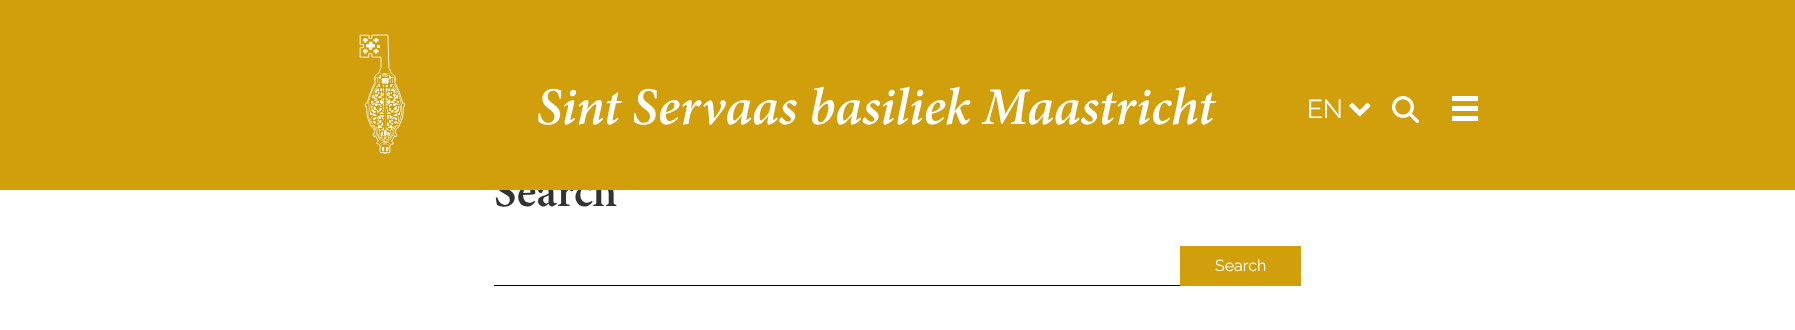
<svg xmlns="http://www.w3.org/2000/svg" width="1795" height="330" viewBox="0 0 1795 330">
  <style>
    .t1 { font: 600 45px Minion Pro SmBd; fill: #333; }
    .t2 { font: 100 26px Raleway; fill: #fff; }
    .t3 { font: 100 16px Raleway; fill: #fff; }
  </style>
  <rect width="100%" height="100%" fill="#fff"/>
  <text x="494" y="206" class="t1">Search</text>
  <rect x="0" y="0" width="1795" height="190" fill="#d09f0b"/>
  <image x="359" y="34" width="47" height="120" href="images/1.png"/>
  <image x="538" y="86" width="679" height="39" href="images/2.png"/>
  <text x="1307" y="118" class="t2">EN</text>
  <image x="1349" y="102" width="22" height="15" href="images/3.png"/>
  <image x="1392" y="96" width="27" height="27" href="images/4.png"/>
  <rect x="1452" y="96" width="26" height="5" fill="#fff"/>
  <rect x="1452" y="106" width="26" height="5" fill="#fff"/>
  <rect x="1452" y="116" width="26" height="5" fill="#fff"/>
  <rect x="1180" y="246" width="121" height="40" fill="#d09f0b"/>
  <text x="1215" y="271" class="t3">Search</text>
  <rect x="494" y="285" width="686" height="1" fill="#000"/>
</svg>
